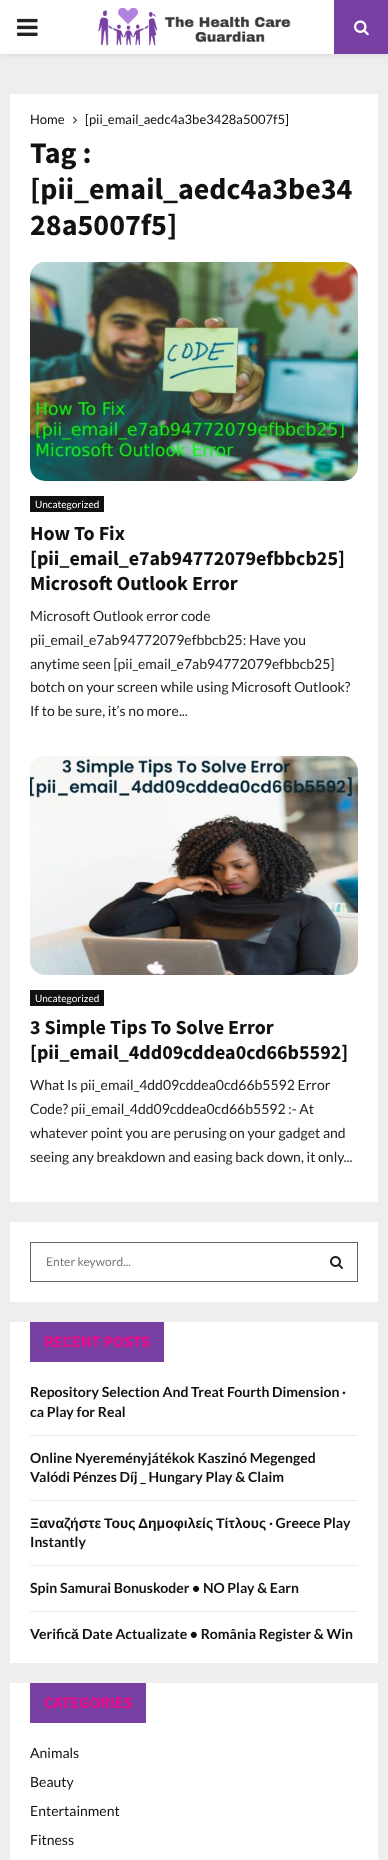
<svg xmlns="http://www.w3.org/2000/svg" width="388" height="1860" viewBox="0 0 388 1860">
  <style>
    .t1 { font: 13px Lato; fill: #111; }
    .t2 { font: bold 30px Source Sans Pro; fill: #111; }
    .t3 { font: 10px Lato; fill: #fff; }
    .t4 { font: bold 20px Source Sans Pro; fill: #111; }
    .t5 { font: 14px Lato; fill: #222; }
    .t6 { font: 12px Lato; fill: #757575; }
    .t7 { font: bold 16px Source Sans Pro; fill: #ed0b87; }
    .t8 { font: bold 14px Lato; fill: #111; }
    .t9 { font: bold 14px Liberation Sans; fill: #111; }
    .t10 { font: 14px Lato; fill: #111; }
  </style>
  <rect width="100%" height="100%" fill="#eee"/>
  <rect x="0" y="1" width="388" height="54" fill="#bebebe75" filter="blur(2.5px)"/>
  <rect x="0" y="0" width="334" height="54" fill="#fff"/>
  <image x="17" y="18" width="21" height="18" href="images/1.png"/>
  <image x="98" y="7" width="193" height="39" href="images/2.png"/>
  <rect x="334" y="0" width="54" height="54" fill="#7840a3"/>
  <image x="354" y="20" width="15" height="16" href="images/3.png"/>
  <rect x="10" y="94" width="368" height="1108" fill="#fff"/>
  <text x="30" y="124" class="t1">Home</text>
  <image x="73" y="116" width="4" height="8" href="images/4.png"/>
  <text x="85" y="124" class="t1">[pii_email_aedc4a3be3428a5007f5]</text>
  <text x="30" y="163" class="t2">Tag :</text>
  <text x="30" y="199" class="t2">[pii_email_aedc4a3be34</text>
  <text x="30" y="235" class="t2">28a5007f5]</text>
  <rect x="30" y="262" width="328" height="219" rx="15" fill="#f5f5f5"/>
  <image x="30" y="262" width="328" height="219" href="images/5.png"/>
  <rect x="30" y="496" width="74" height="16" fill="#111"/>
  <text x="35" y="508" class="t3">Uncategorized</text>
  <text x="30" y="540" class="t4">How To Fix</text>
  <text x="30" y="565" class="t4">[pii_email_e7ab94772079efbbcb25]</text>
  <text x="30" y="590" class="t4">Microsoft Outlook Error</text>
  <text x="30" y="621" class="t5">Microsoft Outlook error code</text>
  <text x="30" y="645" class="t5">pii_email_e7ab94772079efbbcb25: Have you</text>
  <text x="30" y="669" class="t5">anytime seen [pii_email_e7ab94772079efbbcb25]</text>
  <text x="30" y="692" class="t5">botch on your screen while using Microsoft Outlook?</text>
  <text x="30" y="716" class="t5">If to be sure, it’s no more...</text>
  <rect x="30" y="756" width="328" height="219" rx="15" fill="#f5f5f5"/>
  <image x="30" y="756" width="328" height="219" href="images/6.png"/>
  <rect x="30" y="990" width="74" height="16" fill="#111"/>
  <text x="35" y="1002" class="t3">Uncategorized</text>
  <text x="30" y="1034" class="t4">3 Simple Tips To Solve Error</text>
  <text x="30" y="1059" class="t4">[pii_email_4dd09cddea0cd66b5592]</text>
  <text x="30" y="1090" class="t5">What Is pii_email_4dd09cddea0cd66b5592 Error</text>
  <text x="30" y="1114" class="t5">Code? pii_email_4dd09cddea0cd66b5592 :- At</text>
  <text x="30" y="1138" class="t5">whatever point you are perusing on your gadget and</text>
  <text x="30" y="1162" class="t5">seeing any breakdown and easing back down, it only...</text>
  <rect x="10" y="1222" width="368" height="80" fill="#fff"/>
  <rect x="30.5" y="1242.5" width="327" height="39" fill="none" stroke="#666"/>
  <text x="46" y="1266" class="t6">Enter keyword...</text>
  <image x="330" y="1256" width="13" height="13" href="images/7.png"/>
  <rect x="10" y="1322" width="368" height="341" fill="#fff"/>
  <rect x="30" y="1322" width="134" height="40" fill="#7840a3"/>
  <text x="44" y="1347" class="t7">RECENT POSTS</text>
  <rect x="30" y="1435" width="328" height="1" fill="#ececec"/>
  <text x="30" y="1397" class="t8">Repository Selection And Treat Fourth Dimension ·</text>
  <text x="30" y="1417" class="t8">ca Play for Real</text>
  <rect x="30" y="1500" width="328" height="1" fill="#ececec"/>
  <text x="30" y="1463" class="t8">Online Nyereményjátékok Kaszinó Megenged</text>
  <text x="30" y="1482" class="t8">Valódi Pénzes Díj _ Hungary Play &amp; Claim</text>
  <rect x="30" y="1565" width="328" height="1" fill="#ececec"/>
  <text x="30" y="1528" class="t9">Ξαναζήστε</text>
  <text x="104" y="1528" class="t9">Τους</text>
  <text x="138" y="1528" class="t9">Δημοφιλείς</text>
  <text x="216" y="1528" class="t9">Τίτλους</text>
  <text x="269" y="1528" class="t8">· Greece Play</text>
  <text x="30" y="1547" class="t8">Instantly</text>
  <rect x="30" y="1611" width="328" height="1" fill="#ececec"/>
  <text x="30" y="1593" class="t8">Spin Samurai Bonuskoder • NO Play &amp; Earn</text>
  <text x="30" y="1639" class="t8">Verific</text>
  <text x="71" y="1639" class="t9">ă</text>
  <text x="82" y="1639" class="t8">Date Actualizate • România Register &amp; Win</text>
  <rect x="10" y="1683" width="368" height="177" fill="#fff"/>
  <rect x="30" y="1683" width="116" height="40" fill="#7840a3"/>
  <text x="44" y="1708" class="t7">CATEGORIES</text>
  <text x="30" y="1758" class="t10">Animals</text>
  <text x="30" y="1787" class="t10">Beauty</text>
  <text x="30" y="1816" class="t10">Entertainment</text>
  <text x="30" y="1845" class="t10">Fitness</text>
</svg>
